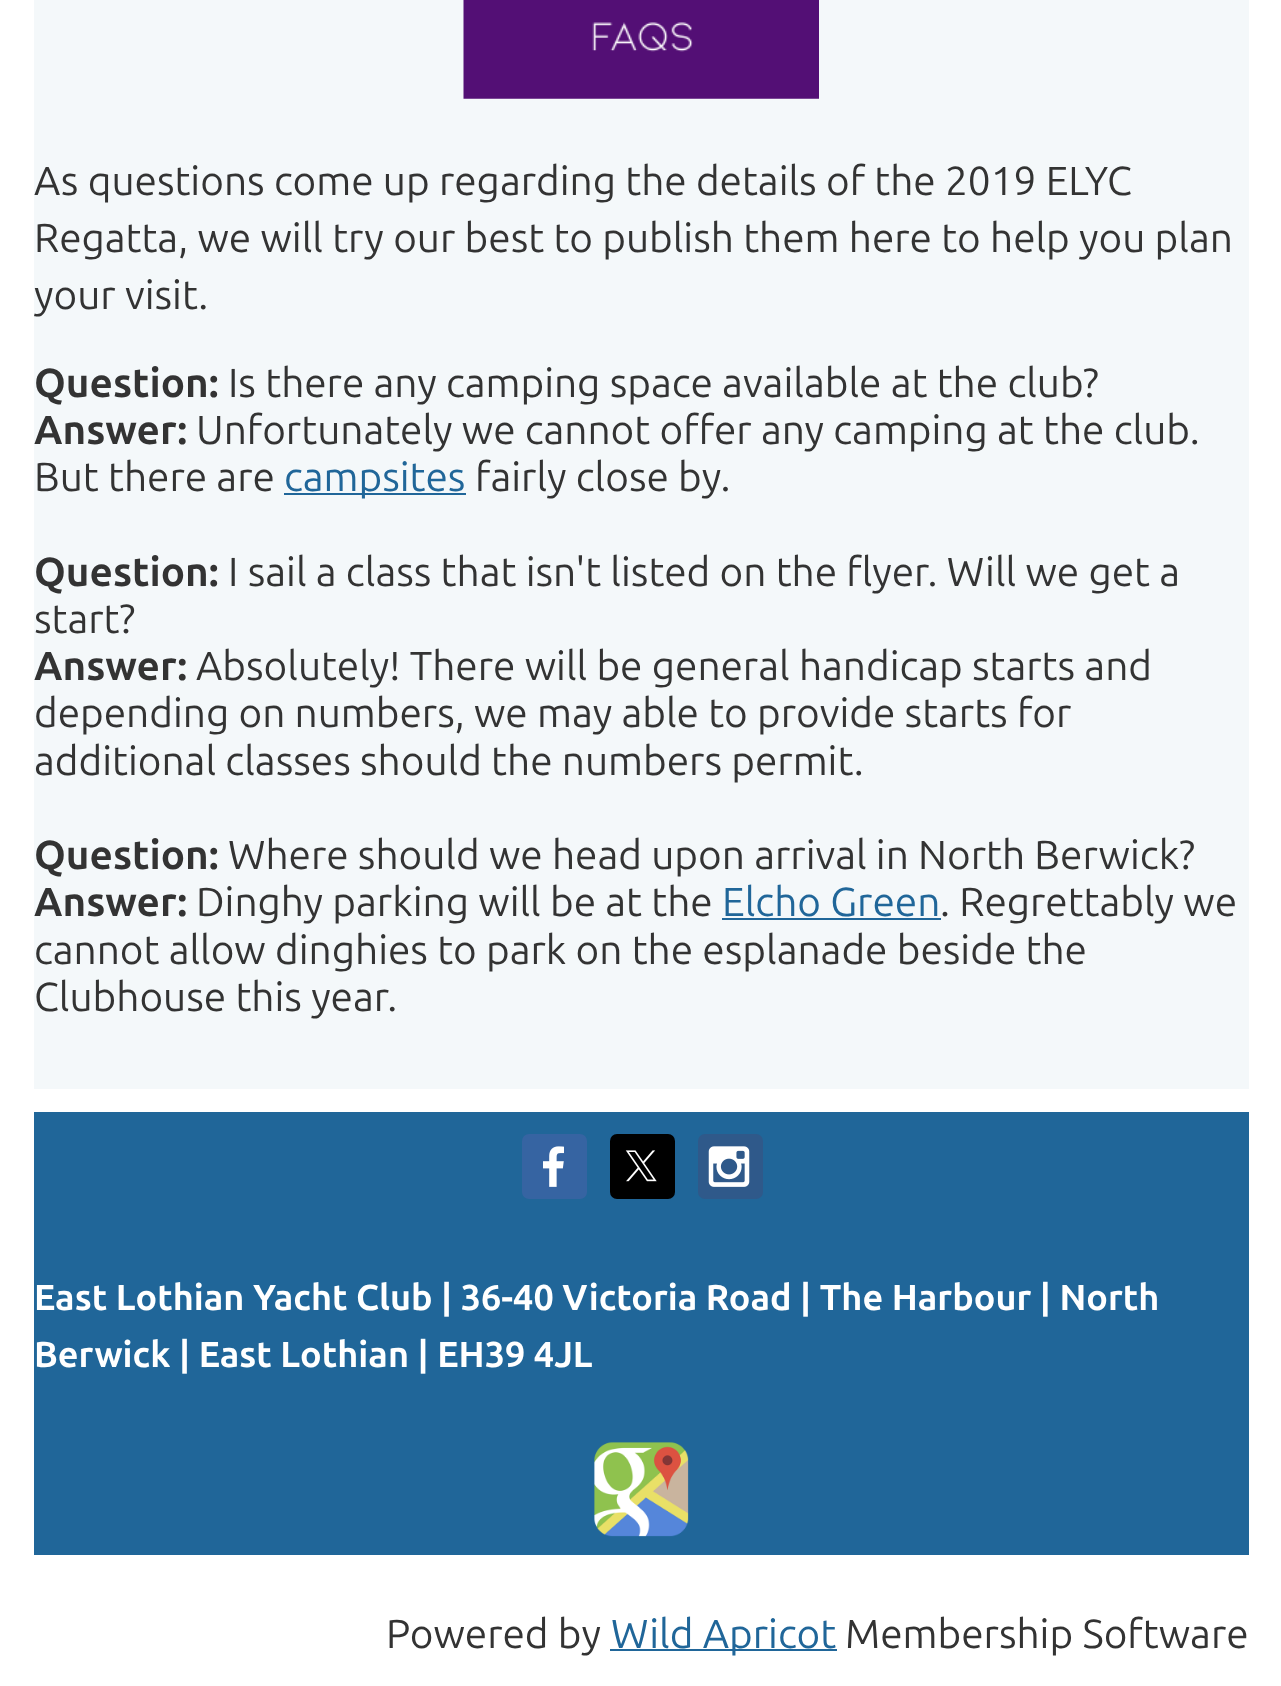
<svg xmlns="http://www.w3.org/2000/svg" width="1281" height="1686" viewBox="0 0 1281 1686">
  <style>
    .t1 { font: 40.5px Ubuntu; fill: #333; }
    .t2 { font: bold 40.5px Ubuntu; fill: #333; }
    .t3 { font: 40.5px Ubuntu; fill: #206699; }
    .t4 { font: bold 36px Ubuntu; fill: #fff; }
  </style>
  <rect width="100%" height="100%" fill="#fff"/>
  <rect x="34" y="0" width="1215" height="1089" fill="#f4f8fa"/>
  <image x="463" y="0" width="356" height="99" href="images/1.png"/>
  <text x="34" y="195" class="t1">As questions come up regarding the details of the 2019 ELYC</text>
  <text x="34" y="252" class="t1">Regatta, we will try our best to publish them here to help you plan</text>
  <text x="34" y="309" class="t1">your visit.</text>
  <text x="34" y="397" class="t2">Question:</text>
  <text x="228" y="397" class="t1">Is there any camping space available at the club?</text>
  <text x="34" y="444" class="t2">Answer:</text>
  <text x="196" y="444" class="t1">Unfortunately we cannot offer any camping at the club.</text>
  <text x="34" y="491" class="t1">But there are</text>
  <rect x="284" y="493" width="182" height="2" fill="#206699"/>
  <text x="284" y="491" class="t3">campsites</text>
  <text x="475" y="491" class="t1">fairly close by.</text>
  <text x="34" y="586" class="t2">Question:</text>
  <text x="228" y="586" class="t1">I sail a class that isn't listed on the flyer. Will we get a</text>
  <text x="34" y="633" class="t1">start?</text>
  <text x="34" y="680" class="t2">Answer:</text>
  <text x="196" y="680" class="t1">Absolutely! There will be general handicap starts and</text>
  <text x="34" y="727" class="t1">depending on numbers, we may able to provide starts for</text>
  <text x="34" y="775" class="t1">additional classes should the numbers permit.</text>
  <text x="34" y="869" class="t2">Question:</text>
  <text x="228" y="869" class="t1">Where should we head upon arrival in North Berwick?</text>
  <text x="34" y="916" class="t2">Answer:</text>
  <text x="196" y="916" class="t1">Dinghy parking will be at the</text>
  <text x="722" y="916" class="t3">Elcho Green</text>
  <rect x="722" y="918" width="219" height="2" fill="#206699"/>
  <text x="940" y="916" class="t1">. Regrettably we</text>
  <text x="34" y="964" class="t1">cannot allow dinghies to park on the esplanade beside the</text>
  <text x="34" y="1011" class="t1">Clubhouse this year.</text>
  <rect x="34" y="1112" width="1215" height="443" fill="#206699"/>
  <rect x="522" y="1134" width="65" height="65" rx="7" fill="#3664a2"/>
  <image x="543" y="1146" width="21" height="41" href="images/2.png"/>
  <rect x="610" y="1134" width="65" height="65" rx="7" fill="#000"/>
  <image x="625" y="1150" width="32" height="32" href="images/3.png"/>
  <rect x="698" y="1134" width="65" height="65" rx="7" fill="#2f598a"/>
  <image x="708" y="1146" width="42" height="41" href="images/4.png"/>
  <text x="34" y="1310" class="t4">East Lothian Yacht Club | 36-40 Victoria Road | The Harbour | North</text>
  <text x="34" y="1367" class="t4">Berwick | East Lothian | EH39 4JL</text>
  <image x="594" y="1442" width="95" height="95" href="images/5.png"/>
  <text x="386" y="1648" class="t1">Powered by</text>
  <rect x="610" y="1649" width="227" height="2" fill="#206699"/>
  <text x="611" y="1648" class="t3">Wild Apricot</text>
  <text x="845" y="1648" class="t1">Membership Software</text>
</svg>
